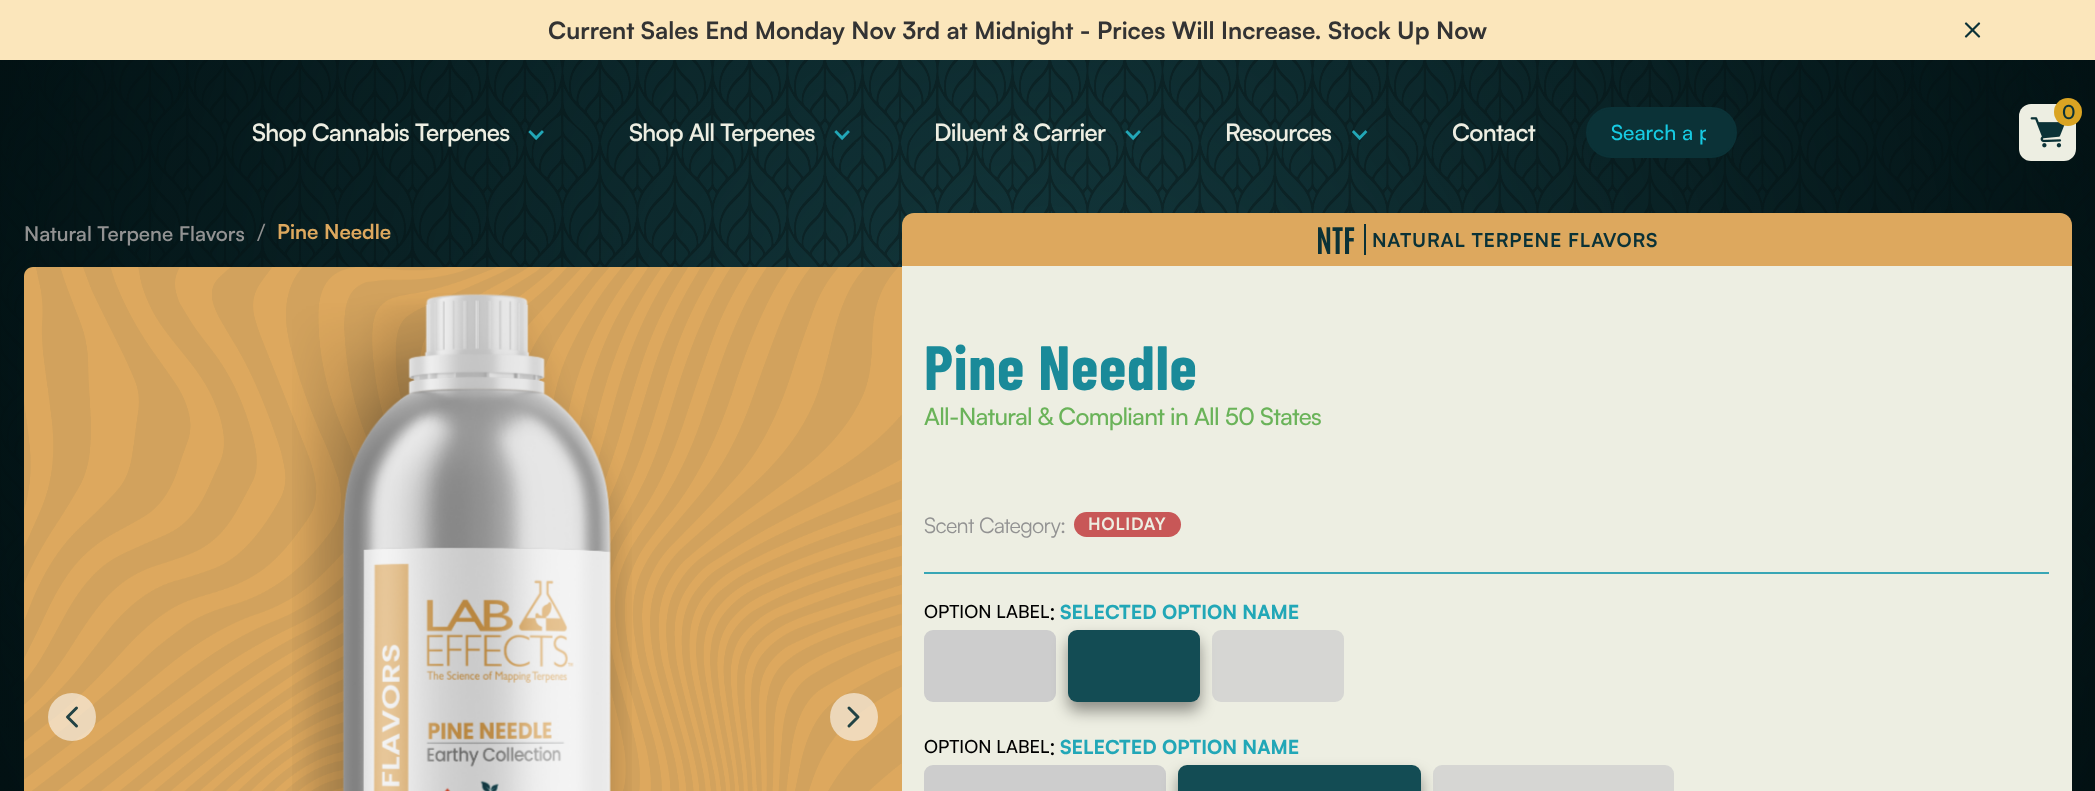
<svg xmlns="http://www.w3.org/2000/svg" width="2095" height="791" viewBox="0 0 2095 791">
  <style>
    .t1 { font: bold 24px Satoshi; fill: #333; }
    .t2 { font: 600 19.25px Satoshi; letter-spacing: -0.7px; fill: #0b3237; }
    .t3 { font: 600 24px Satoshi; letter-spacing: -0.7px; fill: #edeee2; }
    .t4 { font: 500 21px Satoshi; fill: #17cae2; }
    .t5 { font: 600 20.4px Satoshi; fill: #929292; }
    .t6 { font: 24px Satoshi; letter-spacing: -0.7px; fill: #929292; }
    .t7 { font: bold 20.4px Satoshi; fill: #dda85e; }
    .t8 { font: bold 31px Antonio; fill: #0b3237; }
    .t9 { font: bold 19.25px Satoshi; letter-spacing: 0.75px; fill: #0b3237; }
    .t10 { font: bold 62.5px Barlow Condensed; letter-spacing: 0.75px; fill: #1a8a99; }
    .t11 { font: 500 24px Satoshi; letter-spacing: -0.7px; fill: #6ab359; }
    .t12 { font: 21.5px Satoshi; letter-spacing: -0.7px; fill: #929292; }
    .t13 { font: bold 17px Satoshi; letter-spacing: 0.75px; fill: #edeee2; }
    .t14 { font: 500 18px Satoshi; fill: #000; }
    .t15 { font: 24px Satoshi; letter-spacing: -0.7px; fill: #000; }
    .t16 { font: 800 19.25px Satoshi; fill: #22a7b7; }
  </style>
  <defs>
    <clipPath id="clip1"><rect x="1611" y="119" width="95" height="27"/></clipPath>
  </defs>
  <rect width="100%" height="100%" fill="#0b3237"/>
  <image x="0" y="60" width="2095" height="731" href="images/1.png"/>
  <rect x="0" y="0" width="2095" height="60" fill="#fbe6bb"/>
  <text x="548" y="39" class="t1">Current Sales End Monday Nov 3rd at Midnight - Prices Will Increase. Stock Up Now</text>
  <image x="1964" y="22" width="17" height="16" href="images/2.png"/>
  <rect x="2019" y="104" width="57" height="57" rx="12" fill="#edeee2"/>
  <image x="2030" y="117" width="35" height="31" href="images/3.png"/>
  <circle cx="2068" cy="112" r="14" fill="#daa423"/>
  <text x="2062" y="119" class="t2">0</text>
  <text x="252" y="141" class="t3">Shop Cannabis Terpenes</text>
  <image x="528" y="130" width="16" height="11" href="images/4.png"/>
  <text x="629" y="141" class="t3">Shop All Terpenes</text>
  <image x="834" y="130" width="16" height="11" href="images/5.png"/>
  <text x="934" y="141" class="t3">Diluent &amp; Carrier</text>
  <image x="1125" y="130" width="16" height="11" href="images/6.png"/>
  <text x="1225" y="141" class="t3">Resources</text>
  <image x="1352" y="130" width="16" height="11" href="images/7.png"/>
  <text x="1452" y="141" class="t3">Contact</text>
  <rect x="1587" y="108" width="149" height="49" rx="24.5" fill="#0b3237" stroke="#0b3237" stroke-width="2"/>
  <g clip-path="url(#clip1)">
    <text x="1611" y="140" class="t4">Search a p</text>
  </g>
  <text x="24" y="241" class="t5">Natural Terpene Flavors</text>
  <text x="257" y="241" class="t6">/</text>
  <text x="277" y="239" class="t7">Pine Needle</text>
  <path d="M33 267H902V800H33C28 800 24 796 24 791V276C24 271 28 267 33 267Z" fill="#dda85e"/>
  <image x="24" y="267" width="878" height="524" href="images/8.png"/>
  <circle cx="72" cy="717" r="24" fill="#ffffff91"/>
  <path d="M76.5 726L67.5 717L76.5 708" fill="none" stroke="#0b3237e6" stroke-width="3" stroke-linecap="round" stroke-linejoin="round"/>
  <image x="292" y="293" width="340" height="498" href="images/9.png"/>
  <circle cx="854" cy="717" r="24" fill="#ffffff91"/>
  <path d="M849 726L858 717L849 708" fill="none" stroke="#0b3237e6" stroke-width="3" stroke-linecap="round" stroke-linejoin="round"/>
  <path d="M914 213H2060C2066.5 213 2072 218.5 2072 225V266H902V225C902 218.5 907.5 213 914 213Z" fill="#dda85e"/>
  <text x="1316" y="254" class="t8">NTF</text>
  <rect x="1364" y="224" width="2" height="31" fill="#0b3237"/>
  <text x="1372" y="247" class="t9">NATURAL TERPENE FLAVORS</text>
  <rect x="902" y="266" width="1170" height="525" fill="#edeee2"/>
  <text x="924" y="390" class="t10">Pine Needle</text>
  <text x="924" y="425" class="t11">All-Natural &amp; Compliant in All 50 States</text>
  <text x="924" y="533" class="t12">Scent Category:</text>
  <rect x="1074" y="512" width="107" height="25" rx="12.5" fill="#c85757"/>
  <text x="1088" y="530" class="t13">HOLIDAY</text>
  <rect x="924" y="572" width="1125" height="2" fill="#38a6b5"/>
  <text x="924" y="618" class="t14">OPTION LABEL</text>
  <text x="1049" y="620" class="t15">:</text>
  <text x="1060" y="619" class="t16">SELECTED OPTION NAME</text>
  <rect x="924" y="630" width="132" height="72" rx="9" fill="#cdcdcd"/>
  <rect x="1068" y="639" width="132" height="72" rx="9" fill="#00000066" filter="blur(7.5px)"/>
  <rect x="1068" y="630" width="132" height="72" rx="9" fill="#134c54"/>
  <rect x="1212" y="630" width="132" height="72" rx="9" fill="#cdcdcdbf"/>
  <text x="924" y="753" class="t14">OPTION LABEL</text>
  <text x="1049" y="755" class="t15">:</text>
  <text x="1060" y="754" class="t16">SELECTED OPTION NAME</text>
  <rect x="924" y="765" width="242" height="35" rx="9" fill="#cdcdcd"/>
  <rect x="1178" y="774" width="243" height="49" rx="9" fill="#00000066" filter="blur(7.5px)"/>
  <rect x="1178" y="765" width="243" height="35" rx="9" fill="#134c54"/>
  <rect x="1433" y="765" width="241" height="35" rx="9" fill="#cdcdcdbf"/>
</svg>
